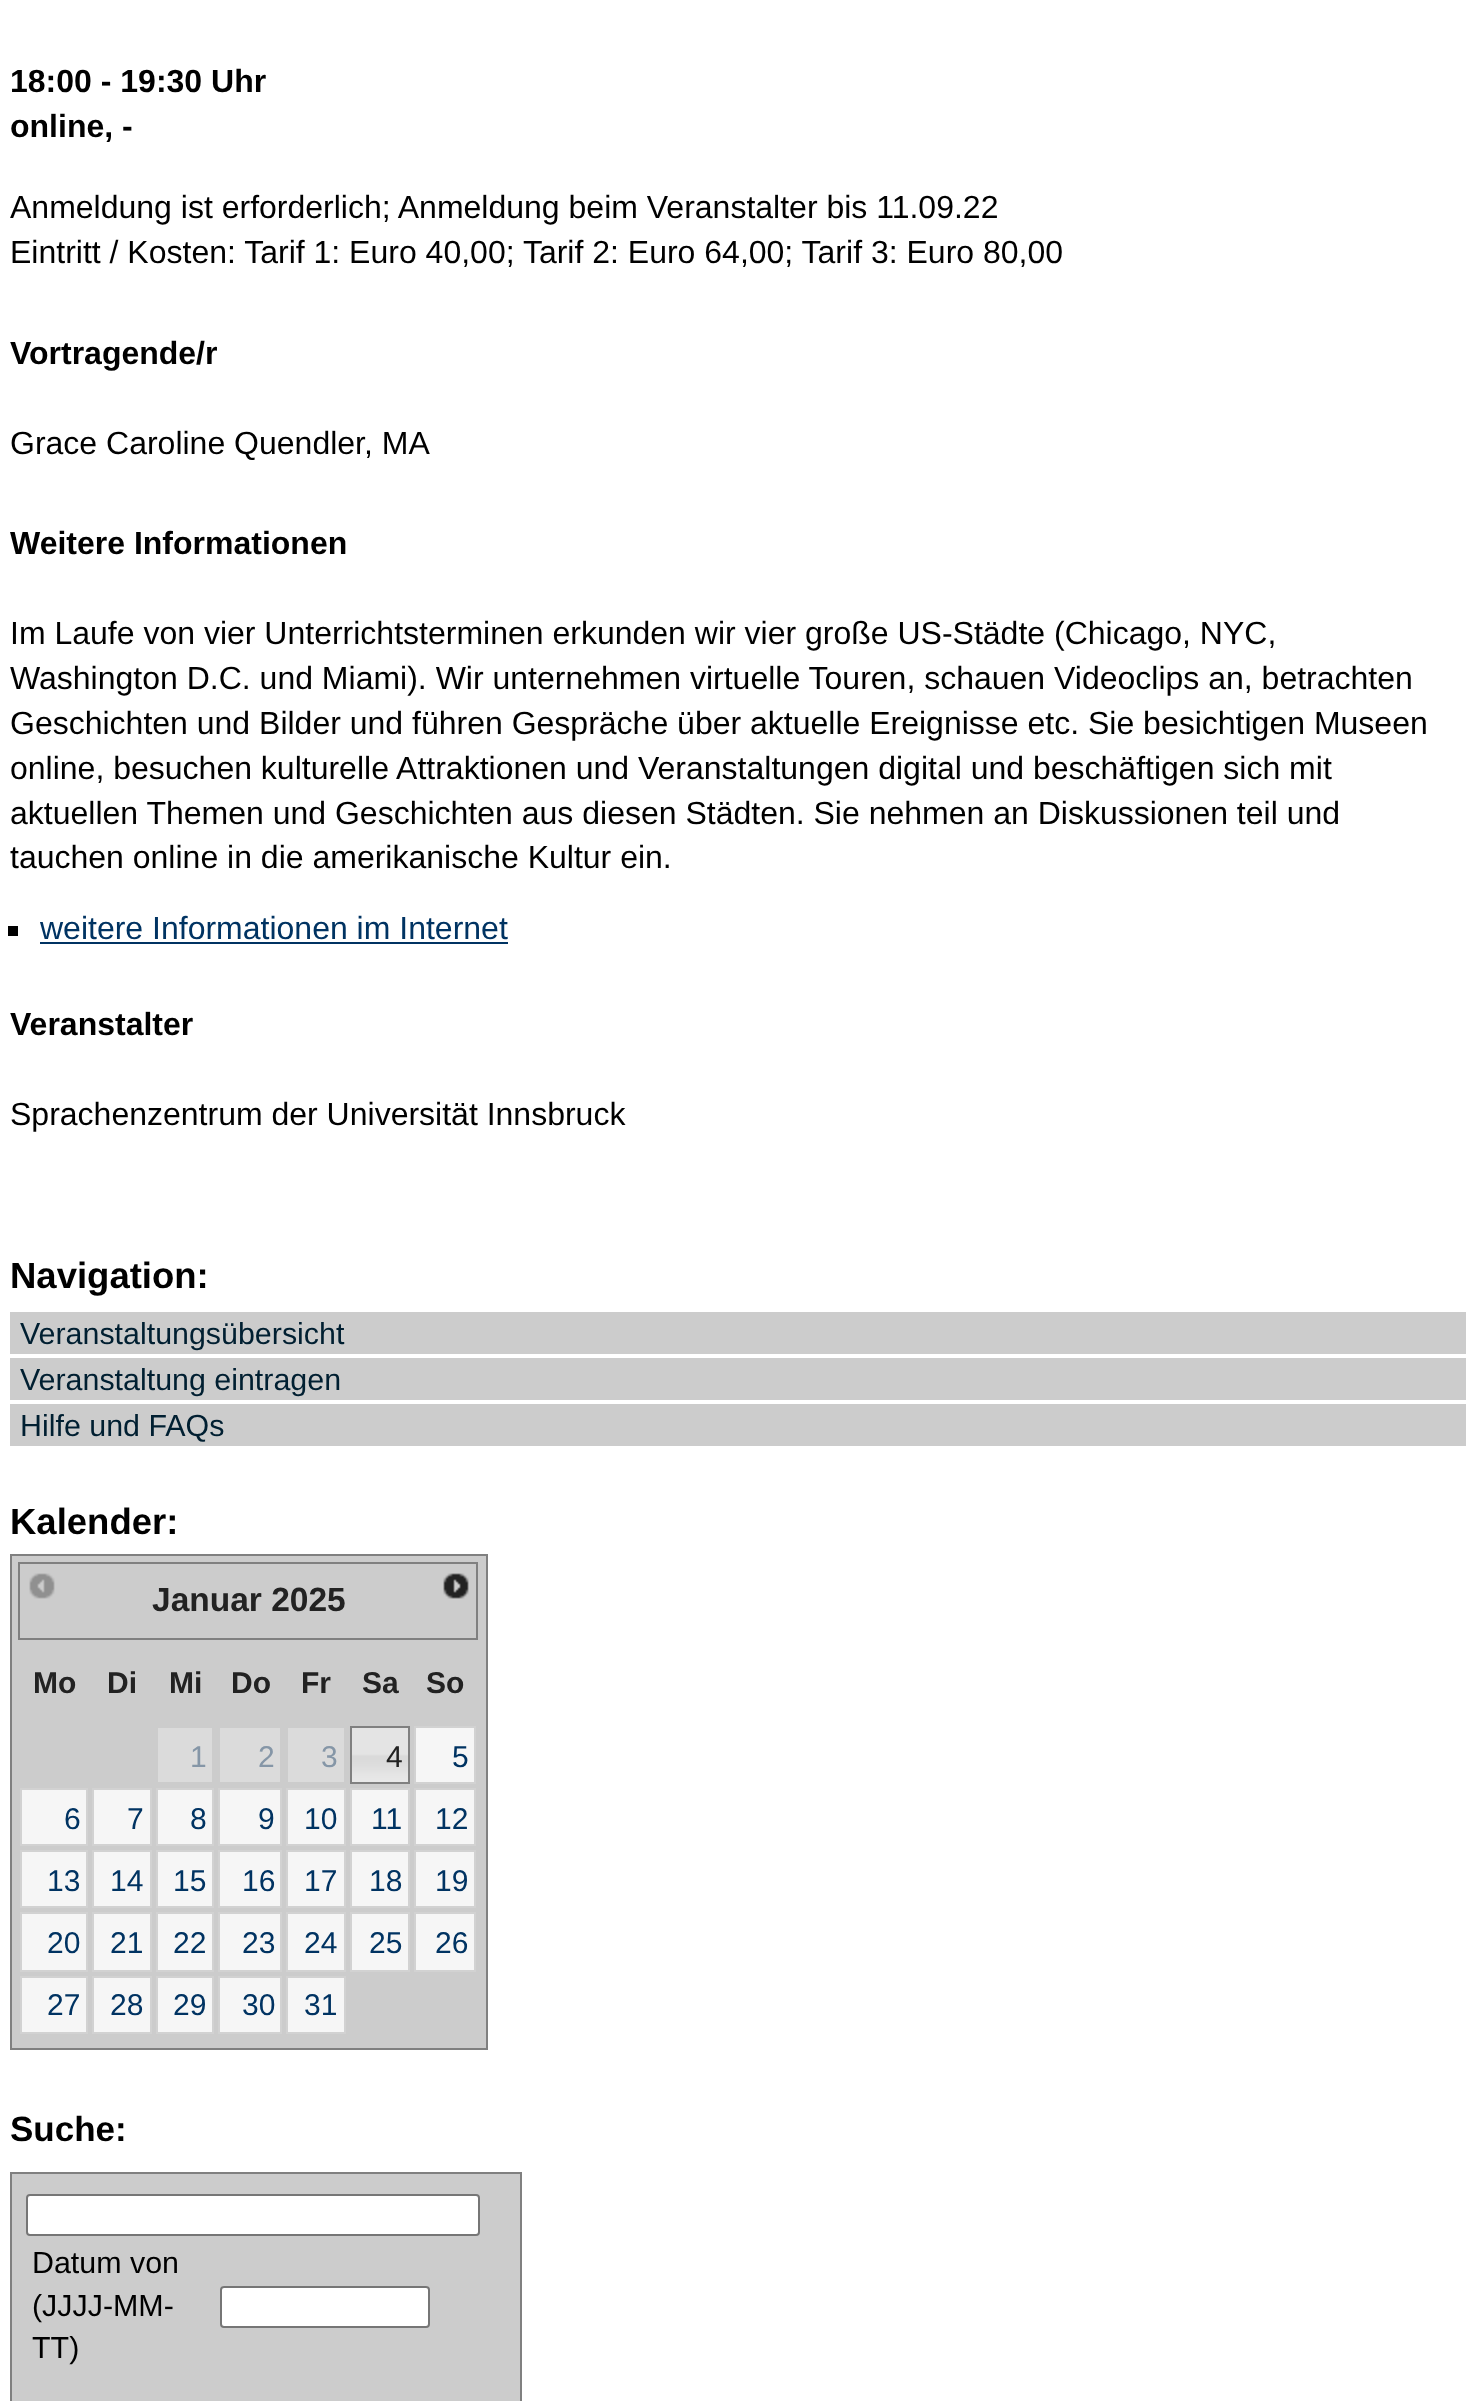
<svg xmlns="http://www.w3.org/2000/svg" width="1479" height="2401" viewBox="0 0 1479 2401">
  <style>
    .t1 { font: bold 32px Liberation Sans; fill: #000; }
    .t2 { font: 32px Liberation Sans; fill: #000; }
    .t3 { font: 32px Liberation Sans; fill: #003362; }
    .t4 { font: bold 36.5px Liberation Sans; fill: #000; }
    .t5 { font: 30.4px Liberation Sans; fill: #001f31; }
    .t6 { font: bold 33.5px Liberation Sans; fill: #222; }
    .t7 { font: bold 30px Liberation Sans; fill: #222; }
    .t8 { font: 30px Liberation Sans; fill: #8596a7; }
    .t9 { font: 30px Liberation Sans; fill: #222; }
    .t10 { font: 30px Liberation Sans; fill: #003362; }
    .t11 { font: bold 35px Liberation Sans; fill: #000; }
    .t12 { font: 30.4px Liberation Sans; fill: #000; }
  </style>
  <rect width="100%" height="100%" fill="#fff"/>
  <text x="10" y="92" class="t1">18:00 - 19:30 Uhr</text>
  <text x="10" y="137" class="t1">online, -</text>
  <text x="10" y="218" class="t2">Anmeldung ist erforderlich; Anmeldung beim Veranstalter bis 11.09.22</text>
  <text x="10" y="263" class="t2">Eintritt / Kosten: Tarif 1: Euro 40,00; Tarif 2: Euro 64,00; Tarif 3: Euro 80,00</text>
  <text x="10" y="364" class="t1">Vortragende/r</text>
  <text x="10" y="454" class="t2">Grace Caroline Quendler, MA</text>
  <text x="10" y="554" class="t1">Weitere Informationen</text>
  <text x="10" y="644" class="t2">Im Laufe von vier Unterrichtsterminen erkunden wir vier große US-Städte (Chicago, NYC,</text>
  <text x="10" y="689" class="t2">Washington D.C. und Miami). Wir unternehmen virtuelle Touren, schauen Videoclips an, betrachten</text>
  <text x="10" y="734" class="t2">Geschichten und Bilder und führen Gespräche über aktuelle Ereignisse etc. Sie besichtigen Museen</text>
  <text x="10" y="779" class="t2">online, besuchen kulturelle Attraktionen und Veranstaltungen digital und beschäftigen sich mit</text>
  <text x="10" y="824" class="t2">aktuellen Themen und Geschichten aus diesen Städten. Sie nehmen an Diskussionen teil und</text>
  <text x="10" y="868" class="t2">tauchen online in die amerikanische Kultur ein.</text>
  <rect x="8" y="926" width="10" height="10" fill="#000"/>
  <text x="40" y="939" class="t3">weitere Informationen im Internet</text>
  <rect x="40" y="942" width="468" height="2" fill="#003362"/>
  <text x="10" y="1035" class="t1">Veranstalter</text>
  <text x="10" y="1125" class="t2">Sprachenzentrum der Universität Innsbruck</text>
  <text x="10" y="1288" class="t4">Navigation:</text>
  <rect x="10" y="1312" width="1456" height="42" fill="#ccc"/>
  <text x="20" y="1344" class="t5">Veranstaltungsübersicht</text>
  <rect x="10" y="1358" width="1456" height="42" fill="#ccc"/>
  <text x="20" y="1390" class="t5">Veranstaltung eintragen</text>
  <rect x="10" y="1404" width="1456" height="42" fill="#ccc"/>
  <text x="20" y="1436" class="t5">Hilfe und FAQs</text>
  <text x="10" y="1534" class="t4">Kalender:</text>
  <rect x="11" y="1555" width="476" height="494" fill="#ccc" stroke="#808080" stroke-width="2"/>
  <rect x="19" y="1563" width="458" height="76" fill="none" stroke="#808080" stroke-width="2"/>
  <image x="29" y="1573" width="26" height="26" href="images/1.png"/>
  <text x="152" y="1611" class="t6">Januar 2025</text>
  <image x="443" y="1573" width="26" height="26" href="images/2.png"/>
  <text x="33" y="1693" class="t7">Mo</text>
  <text x="107" y="1693" class="t7">Di</text>
  <text x="169" y="1693" class="t7">Mi</text>
  <text x="231" y="1693" class="t7">Do</text>
  <text x="301" y="1693" class="t7">Fr</text>
  <text x="362" y="1693" class="t7">Sa</text>
  <text x="426" y="1693" class="t7">So</text>
  <rect x="158" y="1728" width="54" height="54" fill="#dbdbdb"/>
  <text x="190" y="1767" class="t8">1</text>
  <rect x="220" y="1728" width="60" height="54" fill="#dbdbdb"/>
  <text x="258" y="1767" class="t8">2</text>
  <rect x="288" y="1728" width="56" height="54" fill="#dbdbdb"/>
  <text x="321" y="1767" class="t8">3</text>
  <image x="352" y="1728" width="56" height="54" href="images/3.png"/>
  <rect x="351" y="1727" width="58" height="56" fill="none" stroke="#808080" stroke-width="2"/>
  <text x="386" y="1767" class="t9">4</text>
  <rect x="415" y="1727" width="60" height="56" fill="#f6f6f6" stroke="#d2d2d2" stroke-width="2"/>
  <text x="452" y="1767" class="t10">5</text>
  <rect x="21" y="1789" width="66" height="56" fill="#f6f6f6" stroke="#d2d2d2" stroke-width="2"/>
  <text x="64" y="1829" class="t10">6</text>
  <rect x="93" y="1789" width="58" height="56" fill="#f6f6f6" stroke="#d2d2d2" stroke-width="2"/>
  <text x="127" y="1829" class="t10">7</text>
  <rect x="157" y="1789" width="56" height="56" fill="#f6f6f6" stroke="#d2d2d2" stroke-width="2"/>
  <text x="190" y="1829" class="t10">8</text>
  <rect x="219" y="1789" width="62" height="56" fill="#f6f6f6" stroke="#d2d2d2" stroke-width="2"/>
  <text x="258" y="1829" class="t10">9</text>
  <rect x="287" y="1789" width="58" height="56" fill="#f6f6f6" stroke="#d2d2d2" stroke-width="2"/>
  <text x="304" y="1829" class="t10">10</text>
  <rect x="351" y="1789" width="58" height="56" fill="#f6f6f6" stroke="#d2d2d2" stroke-width="2"/>
  <text x="371" y="1829" class="t10">11</text>
  <rect x="415" y="1789" width="60" height="56" fill="#f6f6f6" stroke="#d2d2d2" stroke-width="2"/>
  <text x="435" y="1829" class="t10">12</text>
  <rect x="21" y="1851" width="66" height="56" fill="#f6f6f6" stroke="#d2d2d2" stroke-width="2"/>
  <text x="47" y="1891" class="t10">13</text>
  <rect x="93" y="1851" width="58" height="56" fill="#f6f6f6" stroke="#d2d2d2" stroke-width="2"/>
  <text x="110" y="1891" class="t10">14</text>
  <rect x="157" y="1851" width="56" height="56" fill="#f6f6f6" stroke="#d2d2d2" stroke-width="2"/>
  <text x="173" y="1891" class="t10">15</text>
  <rect x="219" y="1851" width="62" height="56" fill="#f6f6f6" stroke="#d2d2d2" stroke-width="2"/>
  <text x="242" y="1891" class="t10">16</text>
  <rect x="287" y="1851" width="58" height="56" fill="#f6f6f6" stroke="#d2d2d2" stroke-width="2"/>
  <text x="304" y="1891" class="t10">17</text>
  <rect x="351" y="1851" width="58" height="56" fill="#f6f6f6" stroke="#d2d2d2" stroke-width="2"/>
  <text x="369" y="1891" class="t10">18</text>
  <rect x="415" y="1851" width="60" height="56" fill="#f6f6f6" stroke="#d2d2d2" stroke-width="2"/>
  <text x="435" y="1891" class="t10">19</text>
  <rect x="21" y="1913" width="66" height="58" fill="#f6f6f6" stroke="#d2d2d2" stroke-width="2"/>
  <text x="47" y="1953" class="t10">20</text>
  <rect x="93" y="1913" width="58" height="58" fill="#f6f6f6" stroke="#d2d2d2" stroke-width="2"/>
  <text x="110" y="1953" class="t10">21</text>
  <rect x="157" y="1913" width="56" height="58" fill="#f6f6f6" stroke="#d2d2d2" stroke-width="2"/>
  <text x="173" y="1953" class="t10">22</text>
  <rect x="219" y="1913" width="62" height="58" fill="#f6f6f6" stroke="#d2d2d2" stroke-width="2"/>
  <text x="242" y="1953" class="t10">23</text>
  <rect x="287" y="1913" width="58" height="58" fill="#f6f6f6" stroke="#d2d2d2" stroke-width="2"/>
  <text x="304" y="1953" class="t10">24</text>
  <rect x="351" y="1913" width="58" height="58" fill="#f6f6f6" stroke="#d2d2d2" stroke-width="2"/>
  <text x="369" y="1953" class="t10">25</text>
  <rect x="415" y="1913" width="60" height="58" fill="#f6f6f6" stroke="#d2d2d2" stroke-width="2"/>
  <text x="435" y="1953" class="t10">26</text>
  <rect x="21" y="1977" width="66" height="56" fill="#f6f6f6" stroke="#d2d2d2" stroke-width="2"/>
  <text x="47" y="2015" class="t10">27</text>
  <rect x="93" y="1977" width="58" height="56" fill="#f6f6f6" stroke="#d2d2d2" stroke-width="2"/>
  <text x="110" y="2015" class="t10">28</text>
  <rect x="157" y="1977" width="56" height="56" fill="#f6f6f6" stroke="#d2d2d2" stroke-width="2"/>
  <text x="173" y="2015" class="t10">29</text>
  <rect x="219" y="1977" width="62" height="56" fill="#f6f6f6" stroke="#d2d2d2" stroke-width="2"/>
  <text x="242" y="2015" class="t10">30</text>
  <rect x="287" y="1977" width="58" height="56" fill="#f6f6f6" stroke="#d2d2d2" stroke-width="2"/>
  <text x="304" y="2015" class="t10">31</text>
  <text x="10" y="2141" class="t11">Suche:</text>
  <rect x="11" y="2173" width="510" height="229" fill="#ccc" stroke="#808080" stroke-width="2"/>
  <rect x="27" y="2195" width="452" height="40" rx="3" fill="#fff" stroke="#767676" stroke-width="2"/>
  <text x="32" y="2273" class="t12">Datum von</text>
  <text x="32" y="2316" class="t12">(JJJJ-MM-</text>
  <text x="32" y="2358" class="t12">TT)</text>
  <rect x="221" y="2287" width="208" height="40" rx="3" fill="#fff" stroke="#767676" stroke-width="2"/>
</svg>
